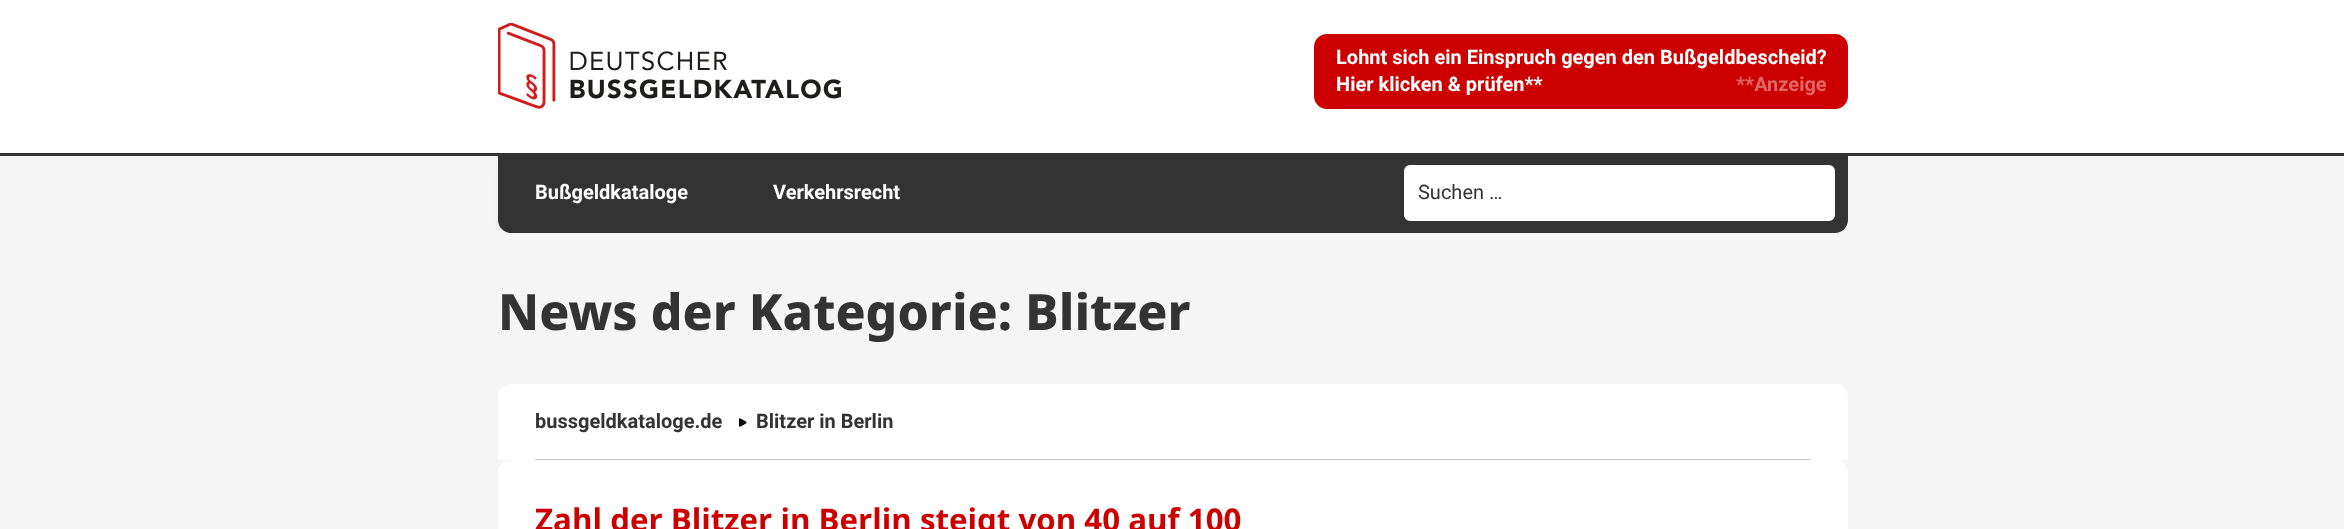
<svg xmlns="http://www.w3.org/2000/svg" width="2344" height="529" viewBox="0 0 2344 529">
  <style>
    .t1 { font: bold 20px Roboto; fill: #fff; }
    .t2 { font: bold 20px Roboto; fill: #e06666; }
    .t3 { font: 20px Roboto; fill: #333; }
    .t4 { font: 800 50px Noto Sans; fill: #333; }
    .t5 { font: bold 20px Roboto; fill: #333; }
    .t6 { font: bold 31.25px Noto Sans; fill: #c00; }
  </style>
  <defs>
    <clipPath id="clip1"><path d="M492 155H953V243H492ZM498 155H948V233H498Z" clip-rule="evenodd"/></clipPath>
  </defs>
  <rect width="100%" height="100%" fill="#fff"/>
  <image x="498" y="23" width="343" height="86" href="images/1.png"/>
  <rect x="1315.5" y="35.5" width="531" height="72" rx="11.5" fill="#c00" stroke="#c00" stroke-width="3"/>
  <text x="1336" y="64" class="t1">Lohnt sich ein Einspruch gegen den Bußgeldbescheid?</text>
  <text x="1336" y="91" class="t1">Hier klicken &amp; prüfen**</text>
  <text x="1736" y="91" class="t2">**Anzeige</text>
  <rect x="0" y="156" width="2344" height="77" fill="#f5f5f5"/>
  <rect x="0" y="153" width="2344" height="3" fill="#333"/>
  <path d="M498 155H1848V220C1848 227 1842 233 1835 233H511C504 233 498 227 498 220Z" fill="#333"/>
  <g clip-path="url(#clip1)">
    <rect x="505" y="168" width="435" height="62" fill="#222" filter="blur(4px)"/>
  </g>
  <text x="535" y="199" class="t1">Bußgeldkataloge</text>
  <text x="773" y="199" class="t1">Verkehrsrecht</text>
  <rect x="1405.5" y="166.5" width="428" height="53" rx="4.5" fill="#fff" stroke="#fff" stroke-width="3"/>
  <text x="1418" y="199" class="t3">Suchen …</text>
  <rect x="0" y="233" width="2344" height="296" fill="#f5f5f5"/>
  <text x="498" y="330" class="t4">News der Kategorie: Blitzer</text>
  <path d="M511 384H1835C1842 384 1848 390 1848 397V460H498V397C498 390 504 384 511 384Z" fill="#fff"/>
  <rect x="535" y="459" width="1275" height="1" fill="#c9c9c9"/>
  <text x="535" y="428" class="t5">bussgeldkataloge.de</text>
  <image x="739" y="418" width="8" height="9" href="images/2.png"/>
  <text x="756" y="428" class="t5">Blitzer in Berlin</text>
  <path d="M511 460H1835C1842 460 1848 466 1848 473V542H498V473C498 466 504 460 511 460Z" fill="#fff"/>
  <text x="535" y="531" class="t6">Zahl der Blitzer in Berlin steigt von 40 auf 100</text>
</svg>
